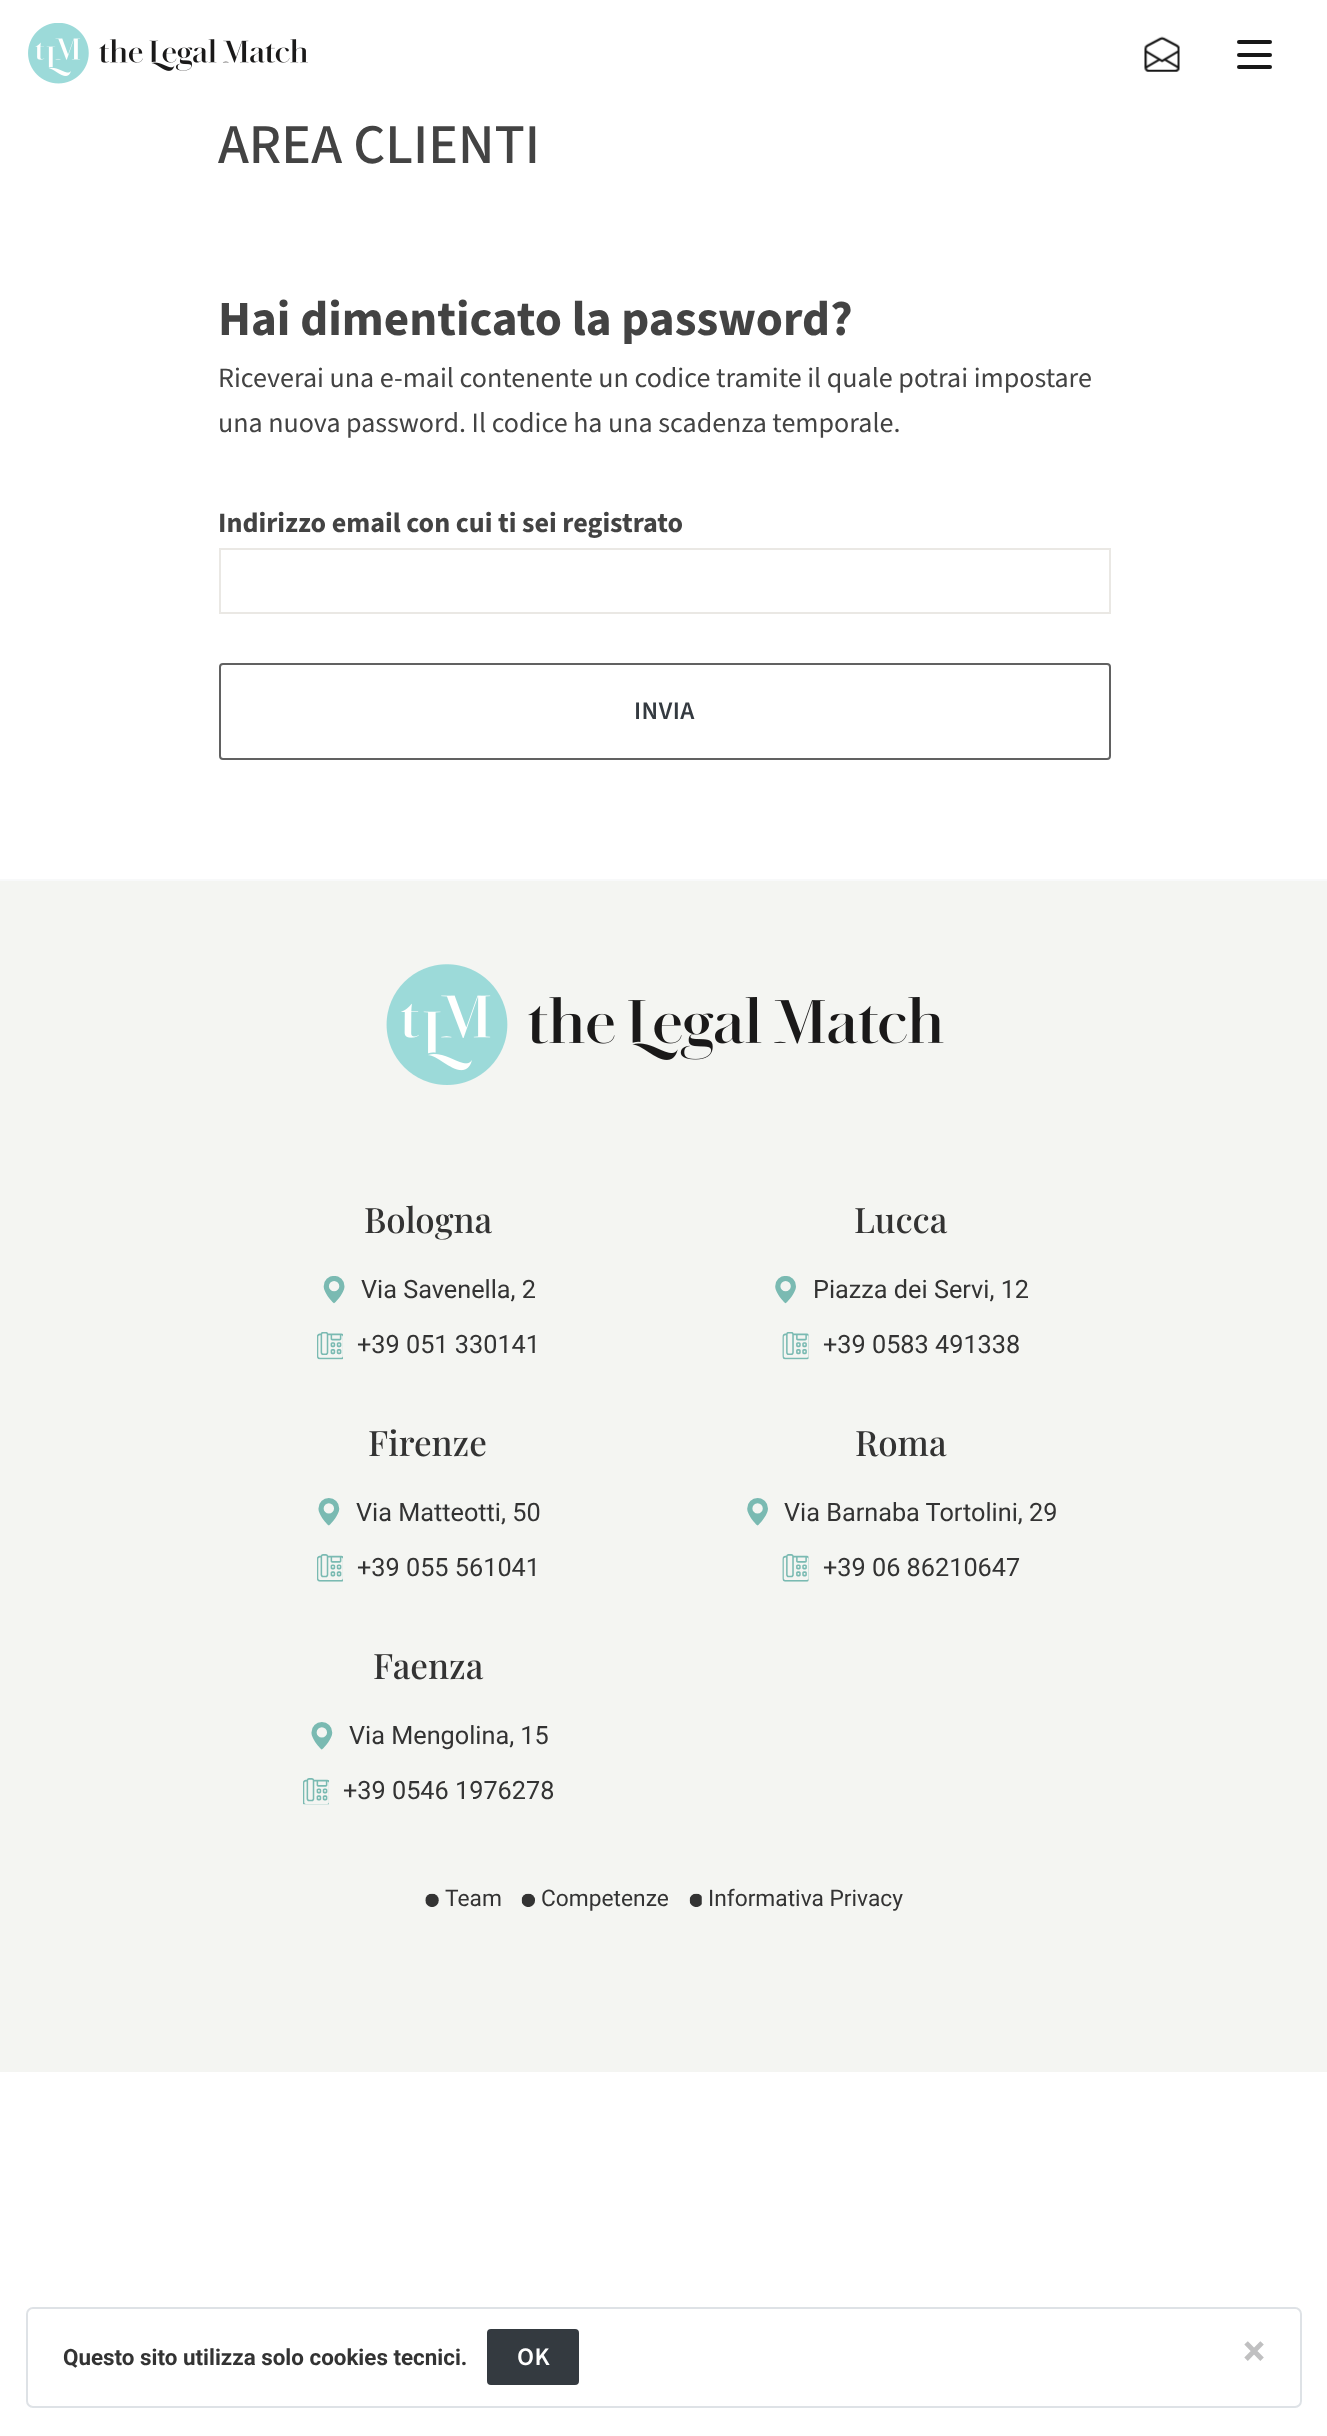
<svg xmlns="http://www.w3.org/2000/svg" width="1327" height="2436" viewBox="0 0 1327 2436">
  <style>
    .t1 { font: 500 56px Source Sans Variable; fill: #434343; }
    .t2 { font: bold 49px Source Sans Variable; fill: #434343; }
    .t3 { font: 28px Source Sans Variable; fill: #434343; }
    .t4 { font: bold 28px Source Sans Variable; fill: #434343; }
    .t5 { font: 600 25.25px Source Sans Variable; letter-spacing: 0.5px; fill: #343a40; }
    .t6 { font: 500 35px Playfair Display; fill: #333; }
    .t7 { font: 25.25px Roboto; fill: #333; }
    .t8 { font: 22.75px Roboto; fill: #333; }
    .t9 { font: bold 22.4px Roboto; fill: #333; }
    .t10 { font: 600 25.25px Source Sans Variable; letter-spacing: 0.5px; fill: #fff; }
    .t11 { font: bold 42px Roboto; fill: #c0c0c1; }
  </style>
  <rect width="100%" height="100%" fill="#fff"/>
  <image x="28" y="23" width="280" height="61" href="images/1.png"/>
  <image x="1144" y="36" width="36" height="36" href="images/2.png"/>
  <rect x="1237" y="53" width="35" height="4" rx="2" fill="#171717"/>
  <rect x="1237" y="40" width="35" height="4" rx="2" fill="#171717"/>
  <rect x="1237" y="65" width="35" height="4" rx="2" fill="#171717"/>
  <text x="218" y="163" class="t1">AREA CLIENTI</text>
  <text x="218" y="335" class="t2">Hai dimenticato la password?</text>
  <text x="218" y="387" class="t3">Riceverai una e-mail contenente un codice tramite il quale potrai impostare</text>
  <text x="218" y="432" class="t3">una nuova password. Il codice ha una scadenza temporale.</text>
  <text x="218" y="532" class="t4">Indirizzo email con cui ti sei registrato</text>
  <rect x="220" y="549" width="890" height="64" fill="none" stroke="#eae8e4" stroke-width="2"/>
  <rect x="220" y="664" width="890" height="95" rx="3" fill="none" stroke="#616161" stroke-width="2"/>
  <text x="634" y="719" class="t5">INVIA</text>
  <rect x="0" y="881" width="1327" height="1191" fill="#f4f5f2"/>
  <rect x="0" y="879" width="1327" height="2" fill="#f8f9fa"/>
  <image x="386" y="964" width="558" height="121" href="images/3.png"/>
  <text x="364" y="1233" class="t6">Bologna</text>
  <image x="323" y="1276" width="22" height="28" href="images/4.png"/>
  <text x="361" y="1298" class="t7">Via Savenella, 2</text>
  <image x="317" y="1332" width="26" height="28" href="images/5.png"/>
  <text x="357" y="1353" class="t7">+39 051 330141</text>
  <text x="854" y="1233" class="t6">Lucca</text>
  <image x="775" y="1276" width="21" height="28" href="images/6.png"/>
  <text x="813" y="1298" class="t7">Piazza dei Servi, 12</text>
  <image x="782" y="1332" width="27" height="28" href="images/7.png"/>
  <text x="823" y="1353" class="t7">+39 0583 491338</text>
  <text x="368" y="1456" class="t6">Firenze</text>
  <image x="318" y="1498" width="22" height="28" href="images/8.png"/>
  <text x="356" y="1521" class="t7">Via Matteotti, 50</text>
  <image x="317" y="1554" width="26" height="28" href="images/9.png"/>
  <text x="357" y="1576" class="t7">+39 055 561041</text>
  <text x="855" y="1456" class="t6">Roma</text>
  <image x="747" y="1498" width="21" height="28" href="images/10.png"/>
  <text x="784" y="1521" class="t7">Via Barnaba Tortolini, 29</text>
  <image x="782" y="1554" width="27" height="28" href="images/11.png"/>
  <text x="823" y="1576" class="t7">+39 06 86210647</text>
  <text x="373" y="1679" class="t6">Faenza</text>
  <image x="311" y="1722" width="22" height="28" href="images/12.png"/>
  <text x="349" y="1744" class="t7">Via Mengolina, 15</text>
  <image x="303" y="1778" width="26" height="27" href="images/13.png"/>
  <text x="343" y="1799" class="t7">+39 0546 1976278</text>
  <image x="425" y="1893" width="14" height="14" href="images/14.png"/>
  <text x="445" y="1906" class="t8">Team</text>
  <image x="521" y="1893" width="14" height="14" href="images/15.png"/>
  <text x="541" y="1906" class="t8">Competenze</text>
  <image x="689" y="1893" width="13" height="14" href="images/16.png"/>
  <text x="708" y="1906" class="t8">Informativa Privacy</text>
  <rect x="27" y="2308" width="1274" height="99" rx="6" fill="none" stroke="#dee2e6" stroke-width="2"/>
  <text x="63" y="2365" class="t9">Questo sito utilizza solo cookies tecnici.</text>
  <rect x="488" y="2330" width="90" height="54" rx="3" fill="#343a40" stroke="#343a40" stroke-width="2"/>
  <text x="517" y="2365" class="t10">OK</text>
  <text x="1243" y="2365" class="t11">×</text>
</svg>
